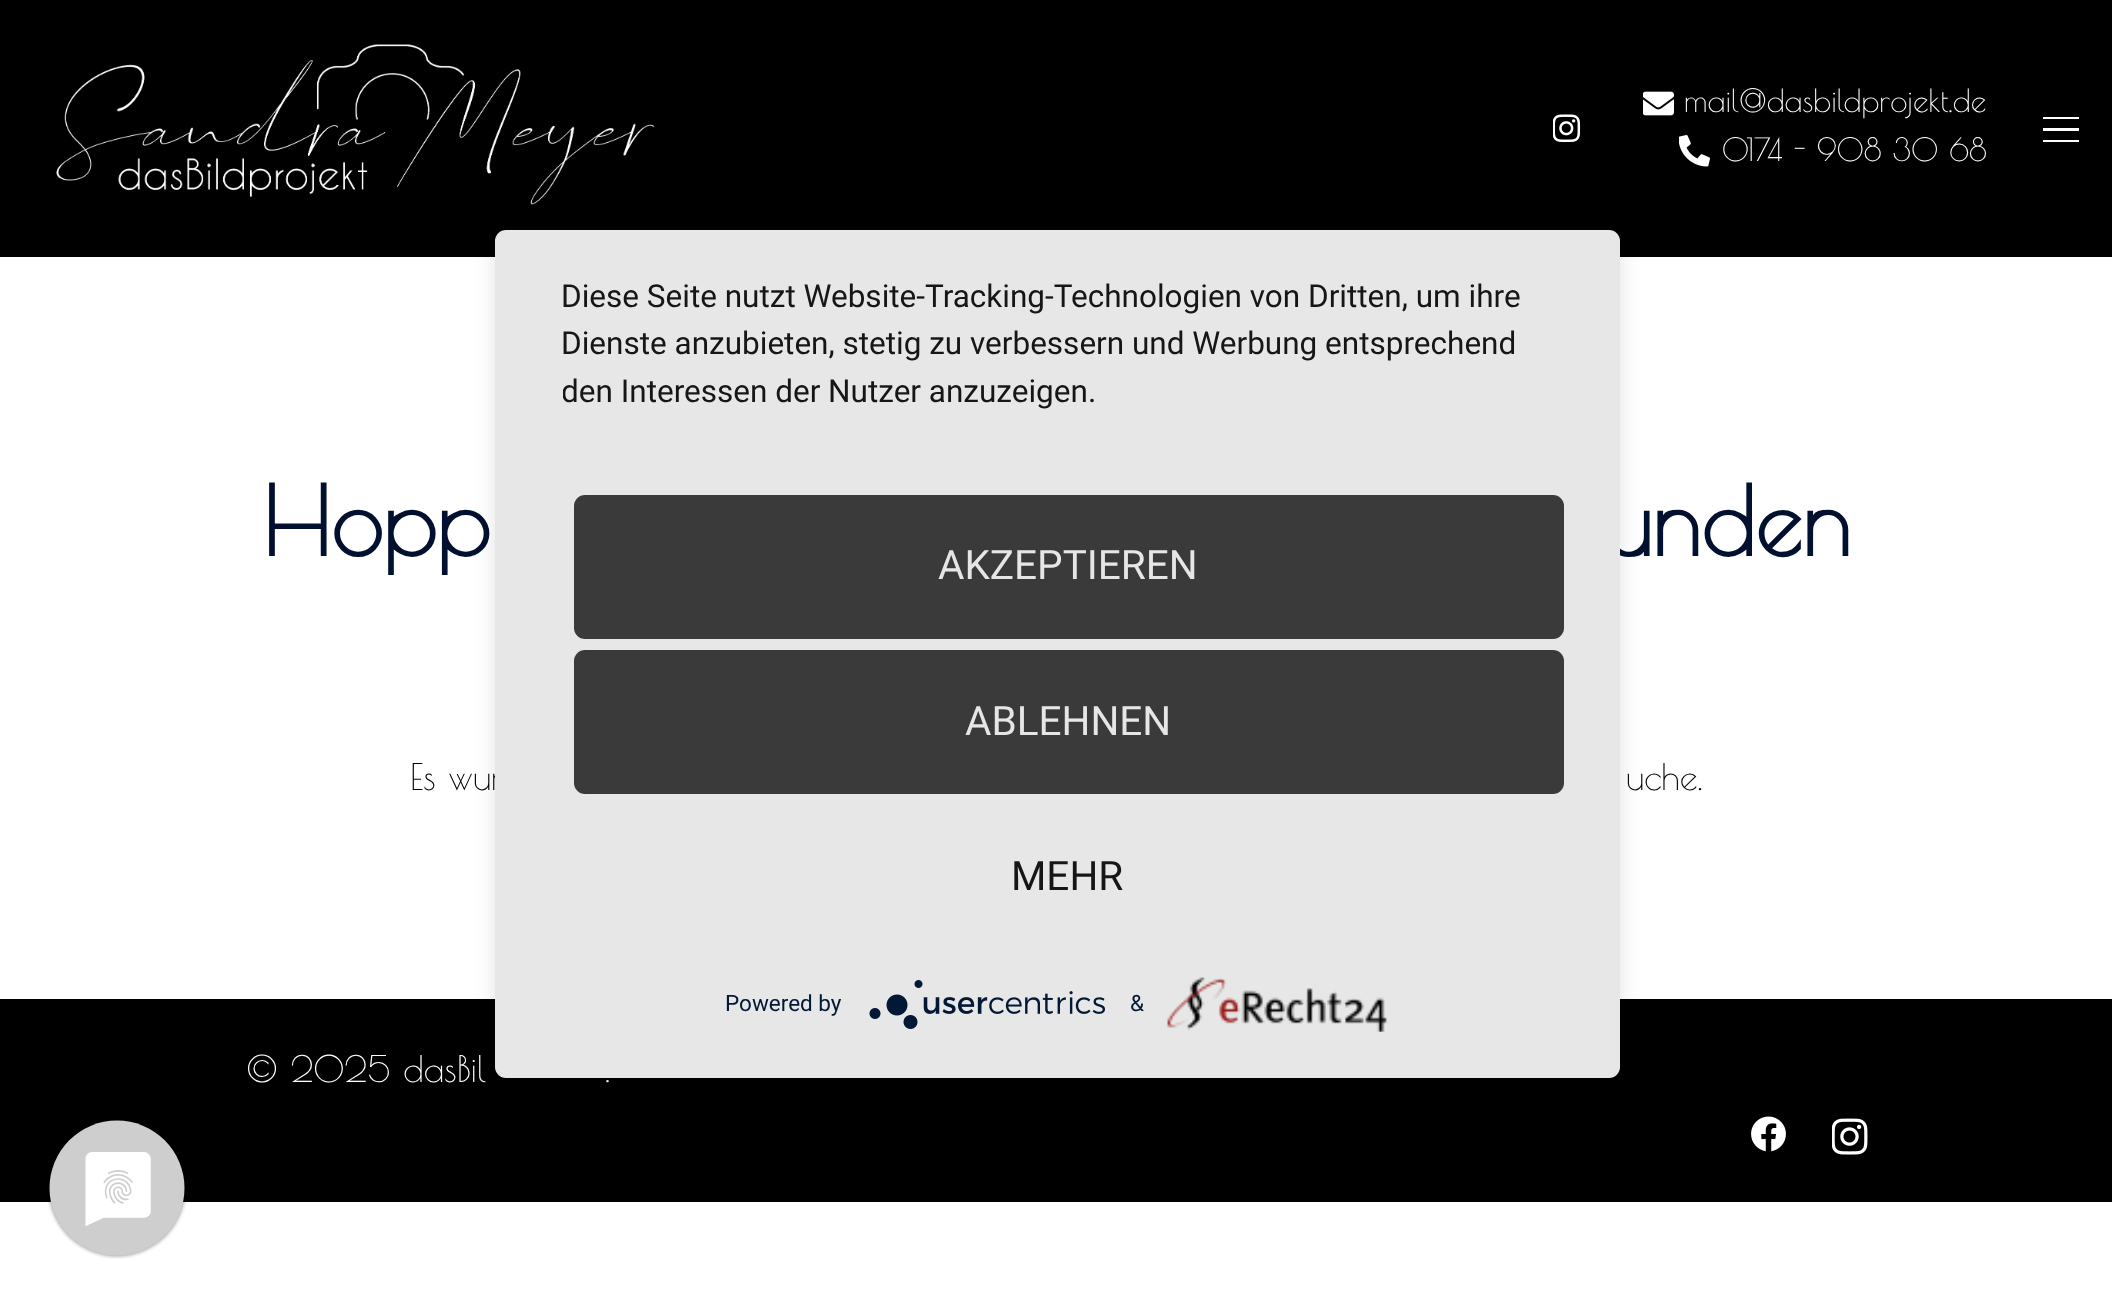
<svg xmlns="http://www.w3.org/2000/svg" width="2112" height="1303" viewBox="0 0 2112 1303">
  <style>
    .t1 { font: 31.5px Poiret One; fill: #fff; }
    .t2 { font: bold 94.5px Poiret One; fill: #00102e; }
    .t3 { font: 36px Poiret One; fill: #000; }
    .t4 { font: 36px Poiret One; fill: #fff; }
    .t5 { font: 31.5px Roboto; fill: #161616; }
    .t6 { font: 40.5px Roboto; fill: #e6e6e6; }
    .t7 { font: 40.5px Roboto; fill: #161616; }
    .t8 { font: 22.5px Roboto; fill: #021836; }
  </style>
  <defs>
    <clipPath id="clip1"><rect x="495" y="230" width="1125" height="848" rx="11"/></clipPath>
    <clipPath id="clip2"><rect x="563" y="275" width="990" height="186"/></clipPath>
  </defs>
  <rect width="100%" height="100%" fill="#fff"/>
  <rect x="0" y="0" width="2112" height="257" fill="#000"/>
  <image x="56" y="44" width="599" height="161" href="images/1.png"/>
  <image x="1553" y="114" width="28" height="28" href="images/2.png"/>
  <image x="1643" y="91" width="31" height="25" href="images/3.png"/>
  <text x="1684" y="112" class="t1">mail@dasbildprojekt.de</text>
  <image x="1679" y="135" width="31" height="32" href="images/4.png"/>
  <text x="1722" y="161" class="t1">0174 - 908 30 68</text>
  <rect x="2043" y="117" width="36" height="2" fill="#fff"/>
  <rect x="2043" y="128" width="36" height="3" fill="#fff"/>
  <rect x="2043" y="140" width="36" height="2" fill="#fff"/>
  <text x="262" y="556" class="t2">Hopp</text>
  <text x="1604" y="556" class="t2">unden</text>
  <text x="410" y="790" class="t3">Es wur</text>
  <text x="1626" y="790" class="t3">uche.</text>
  <rect x="0" y="999" width="2112" height="203" fill="#000"/>
  <text x="246" y="1082" class="t4">© 2025 dasBil</text>
  <text x="605" y="1082" class="t4">.</text>
  <image x="1751" y="1116" width="35" height="36" href="images/5.png"/>
  <image x="1832" y="1118" width="36" height="37" href="images/6.png"/>
  <rect x="495" y="236" width="1125" height="849" rx="11" fill="#0000001a" filter="blur(11px)"/>
  <g clip-path="url(#clip1)">
    <rect x="495" y="243" width="1125" height="848" fill="#0000004d" filter="blur(40.5px)"/>
  </g>
  <rect x="495" y="230" width="1125" height="848" rx="11" fill="#e7e7e7"/>
  <text x="561" y="307" class="t5">Diese Seite nutzt Website-Tracking-Technologien von Dritten, um ihre</text>
  <text x="561" y="354" class="t5">Dienste anzubieten, stetig zu verbessern und Werbung entsprechend</text>
  <g clip-path="url(#clip2)">
    <text x="561" y="402" class="t5">den Interessen der Nutzer anzuzeigen.</text>
  </g>
  <rect x="574" y="495" width="990" height="144" rx="11" fill="#3a3a3a"/>
  <text x="938" y="579" class="t6">AKZEPTIEREN</text>
  <rect x="574" y="650" width="990" height="144" rx="11" fill="#3a3a3a"/>
  <text x="965" y="735" class="t6">ABLEHNEN</text>
  <text x="1011" y="890" class="t7">MEHR</text>
  <text x="725" y="1011" class="t8">Powered by</text>
  <image x="869" y="980" width="236" height="49" href="images/7.png"/>
  <text x="1130" y="1011" class="t8">&amp;</text>
  <image x="1167" y="977" width="220" height="55" href="images/8.png"/>
  <image x="47" y="1120" width="140" height="139" href="images/9.png"/>
</svg>
